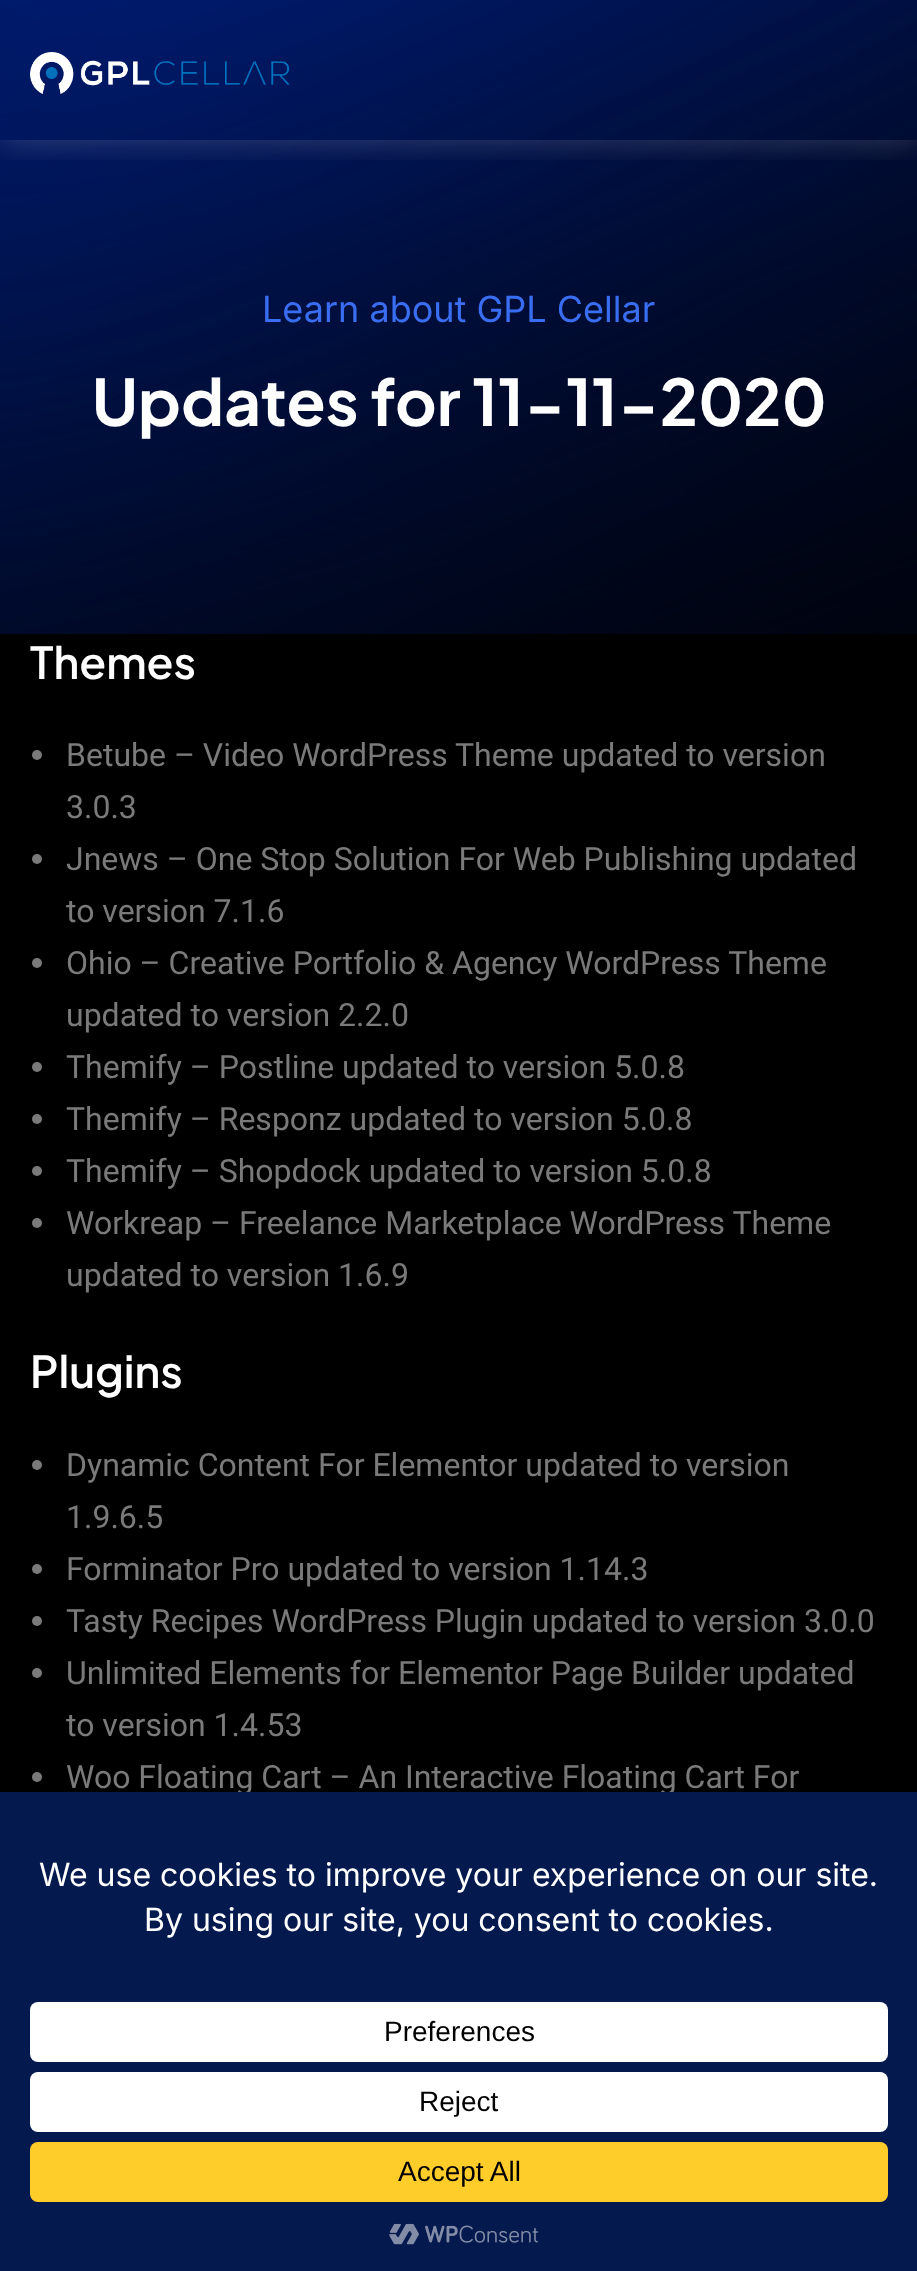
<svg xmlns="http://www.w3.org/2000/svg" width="917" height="2271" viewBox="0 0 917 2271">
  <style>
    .t1 { font: 36px Inter; fill: #3a6ef2; }
    .t2 { font: bold 64px Plus Jakarta Sans; fill: #fff; }
    .t3 { font: 600 44px Plus Jakarta Sans; fill: #fff; }
    .t4 { font: 32px Roboto; fill: #7a7a7a; }
    .t5 { font: 32px Inter; fill: #fff; }
    .t6 { font: 28px Liberation Sans; fill: #000; }
  </style>
  <defs>
    <clipPath id="clip1"><rect x="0" y="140" width="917" height="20"/></clipPath>
  </defs>
  <rect width="100%" height="100%" fill="#000"/>
  <image x="0" y="0" width="917" height="634" href="images/2.png"/>
  <g clip-path="url(#clip1)">
    <rect x="0" y="0" width="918" height="140" fill="#ffffff33" filter="blur(16px)"/>
  </g>
  <image x="30" y="52" width="260" height="42" href="images/1.png"/>
  <text x="262" y="322" class="t1">Learn about GPL Cellar</text>
  <text x="92" y="426" class="t2">Updates for 11-11-2020</text>
  <text x="30" y="679" class="t3">Themes</text>
  <circle cx="37" cy="755" r="5" fill="#7a7a7a"/>
  <text x="66" y="766" class="t4">Betube – Video WordPress Theme updated to version</text>
  <text x="66" y="818" class="t4">3.0.3</text>
  <circle cx="37" cy="859" r="5" fill="#7a7a7a"/>
  <text x="66" y="870" class="t4">Jnews – One Stop Solution For Web Publishing updated</text>
  <text x="66" y="922" class="t4">to version 7.1.6</text>
  <circle cx="37" cy="963" r="5" fill="#7a7a7a"/>
  <text x="66" y="974" class="t4">Ohio – Creative Portfolio &amp; Agency WordPress Theme</text>
  <text x="66" y="1026" class="t4">updated to version 2.2.0</text>
  <circle cx="37" cy="1067" r="5" fill="#7a7a7a"/>
  <text x="66" y="1078" class="t4">Themify – Postline updated to version 5.0.8</text>
  <circle cx="37" cy="1119" r="5" fill="#7a7a7a"/>
  <text x="66" y="1130" class="t4">Themify – Responz updated to version 5.0.8</text>
  <circle cx="37" cy="1171" r="5" fill="#7a7a7a"/>
  <text x="66" y="1182" class="t4">Themify – Shopdock updated to version 5.0.8</text>
  <circle cx="37" cy="1223" r="5" fill="#7a7a7a"/>
  <text x="66" y="1234" class="t4">Workreap – Freelance Marketplace WordPress Theme</text>
  <text x="66" y="1286" class="t4">updated to version 1.6.9</text>
  <text x="30" y="1388" class="t3">Plugins</text>
  <circle cx="37" cy="1465" r="5" fill="#7a7a7a"/>
  <text x="66" y="1476" class="t4">Dynamic Content For Elementor updated to version</text>
  <text x="66" y="1528" class="t4">1.9.6.5</text>
  <circle cx="37" cy="1569" r="5" fill="#7a7a7a"/>
  <text x="66" y="1580" class="t4">Forminator Pro updated to version 1.14.3</text>
  <circle cx="37" cy="1621" r="5" fill="#7a7a7a"/>
  <text x="66" y="1632" class="t4">Tasty Recipes WordPress Plugin updated to version 3.0.0</text>
  <circle cx="37" cy="1673" r="5" fill="#7a7a7a"/>
  <text x="66" y="1684" class="t4">Unlimited Elements for Elementor Page Builder updated</text>
  <text x="66" y="1736" class="t4">to version 1.4.53</text>
  <circle cx="37" cy="1777" r="5" fill="#7a7a7a"/>
  <text x="66" y="1788" class="t4">Woo Floating Cart – An Interactive Floating Cart For</text>
  <rect x="0" y="1792" width="917" height="479" fill="#04194e"/>
  <text x="39" y="1886" class="t5">We use cookies to improve your experience on our site.</text>
  <text x="144" y="1931" class="t5">By using our site, you consent to cookies.</text>
  <rect x="30" y="2002" width="858" height="60" rx="8" fill="#fff"/>
  <text x="384" y="2041" class="t6">Preferences</text>
  <rect x="30" y="2072" width="858" height="60" rx="8" fill="#fff"/>
  <text x="419" y="2111" class="t6">Reject</text>
  <rect x="30" y="2142" width="858" height="60" rx="8" fill="#ffcd2a"/>
  <text x="398" y="2181" class="t6">Accept All</text>
  <image x="389" y="2223" width="149" height="22" href="images/3.png"/>
</svg>
